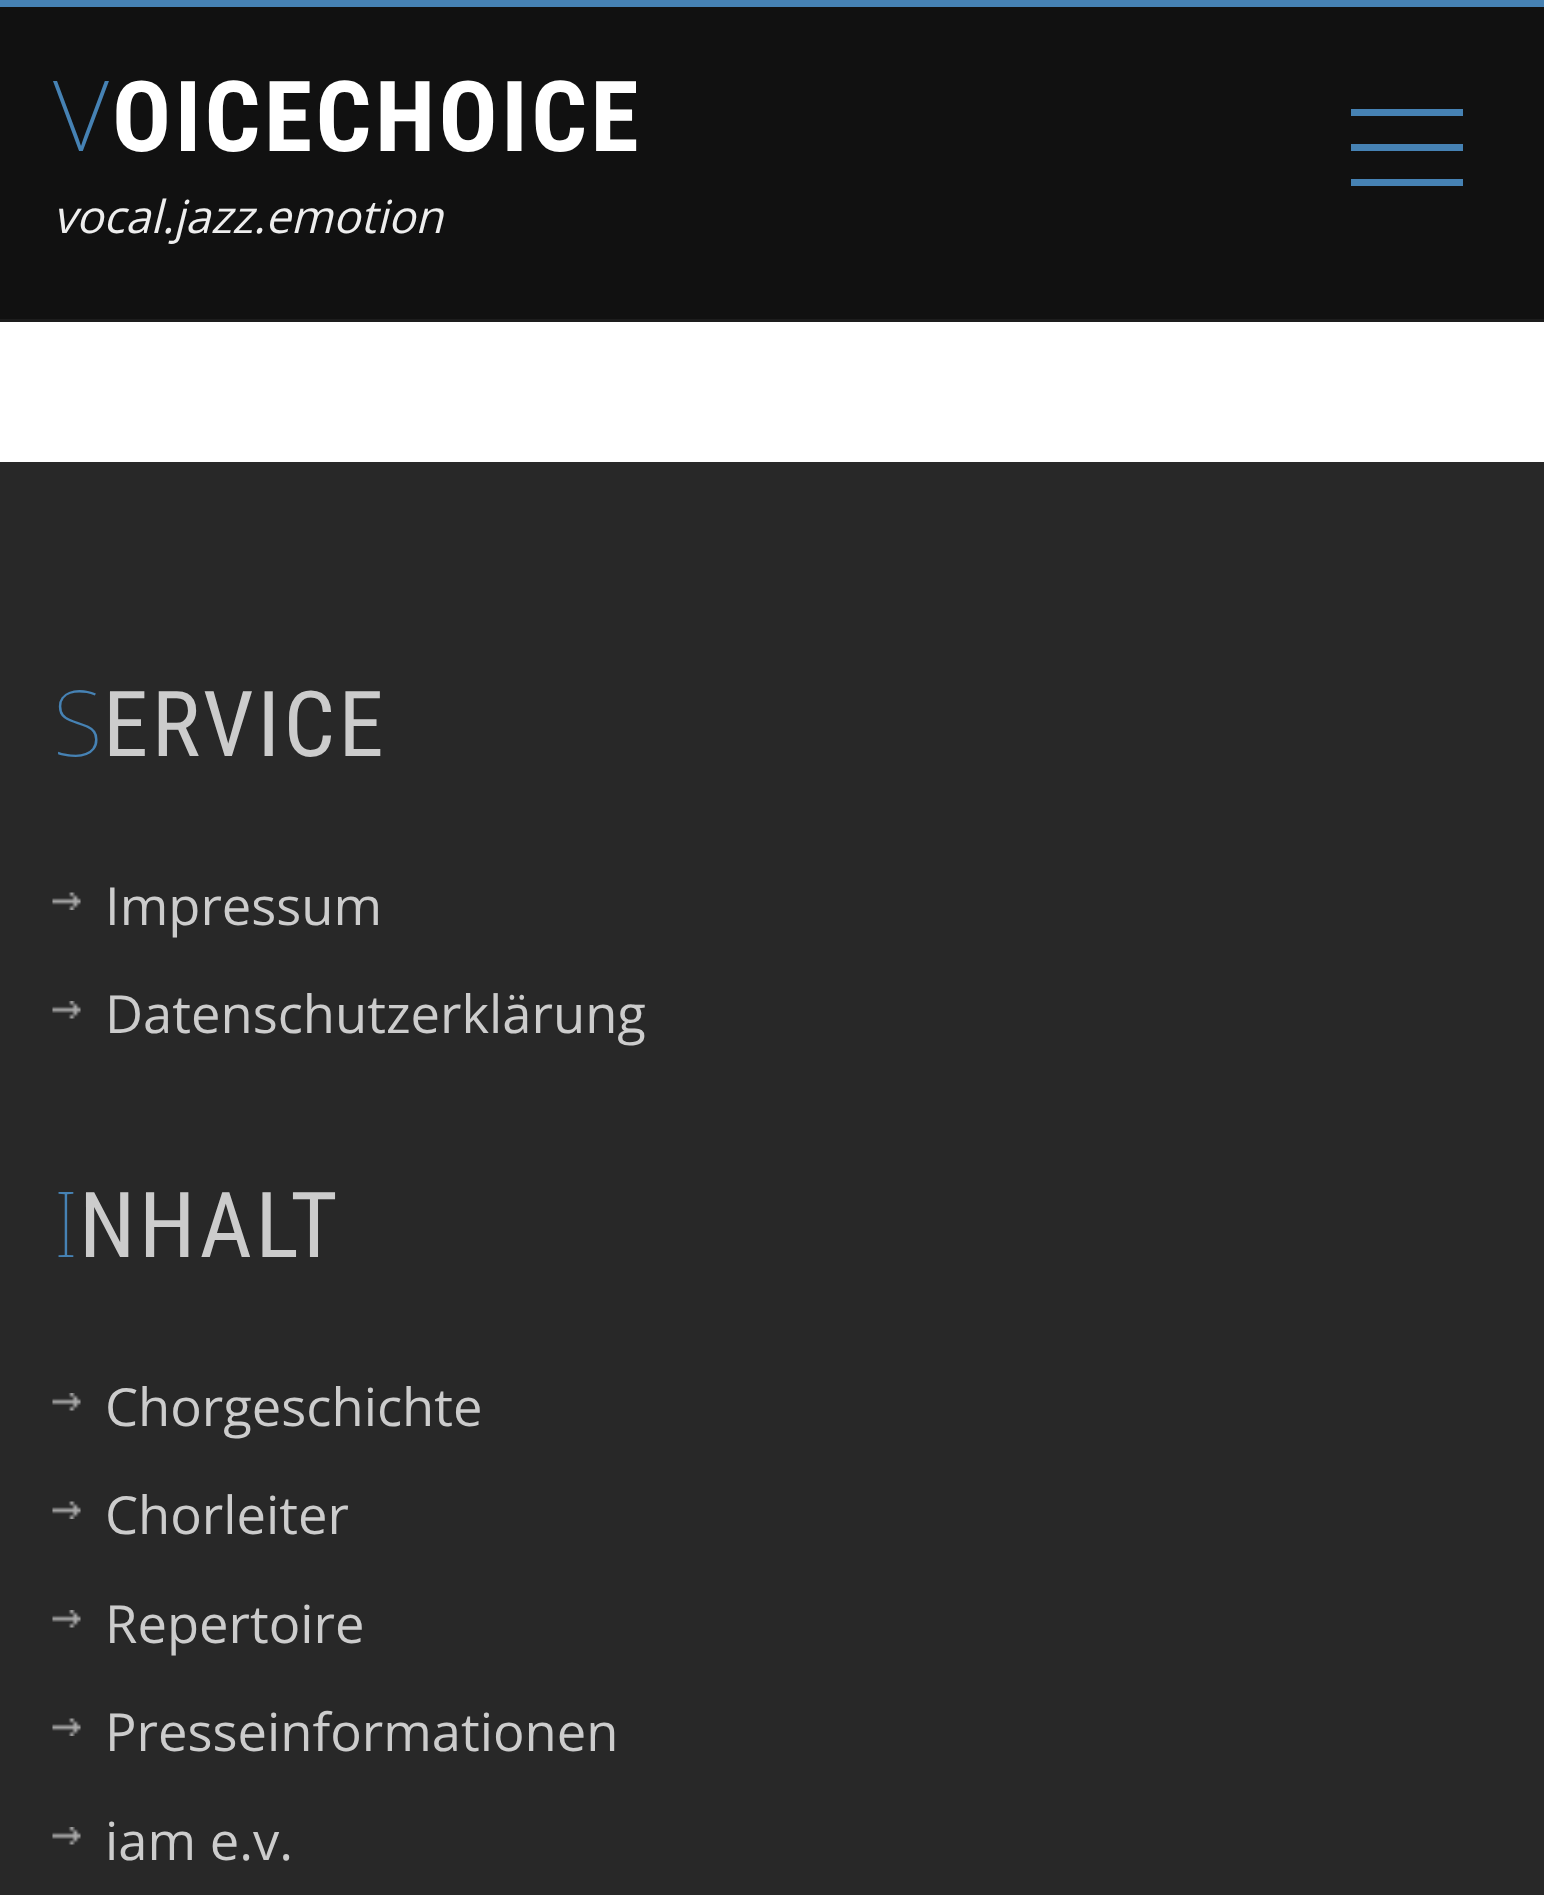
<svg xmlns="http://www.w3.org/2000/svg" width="1544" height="1895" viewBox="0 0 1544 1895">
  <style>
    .t1 { font: 200 98px Noto Sans; letter-spacing: 3.5px; fill: #4682b4; }
    .t2 { font: bold 98px Roboto Condensed; letter-spacing: 3.5px; fill: #fff; }
    .t3 { font: italic 45.5px Open Sans; fill: #eee; }
    .t4 { font: 100 91px Noto Sans; letter-spacing: 3.5px; fill: #4682b4; }
    .t5 { font: 91px Roboto Condensed; letter-spacing: 3.5px; fill: #ccc; }
    .t6 { font: 52.5px Open Sans; fill: #ccc; }
  </style>
  <rect width="100%" height="100%" fill="#fff"/>
  <rect x="0" y="7" width="1544" height="312" fill="#111"/>
  <rect x="0" y="319" width="1544" height="3" fill="#1d1d1d"/>
  <rect x="0" y="0" width="1544" height="7" fill="#4682b4"/>
  <text x="53" y="151" class="t1">V</text>
  <text x="112" y="151" class="t2">OICECHOICE</text>
  <text x="53" y="233" class="t3">vocal.jazz.emotion</text>
  <rect x="1351" y="109" width="112" height="7" fill="#4682b4"/>
  <rect x="1351" y="179" width="112" height="7" fill="#4682b4"/>
  <rect x="1351" y="144" width="112" height="7" fill="#4682b4"/>
  <rect x="0" y="462" width="1544" height="1433" fill="#282828"/>
  <text x="53" y="756" class="t4">S</text>
  <text x="103" y="756" class="t5">ERVICE</text>
  <image x="52" y="892" width="29" height="18" href="images/1.png"/>
  <text x="105" y="925" class="t6">Impressum</text>
  <image x="52" y="1001" width="29" height="18" href="images/2.png"/>
  <text x="105" y="1033" class="t6">Datenschutzerklärung</text>
  <text x="53" y="1257" class="t4">I</text>
  <text x="79" y="1257" class="t5">NHALT</text>
  <image x="52" y="1393" width="29" height="18" href="images/2.png"/>
  <text x="105" y="1426" class="t6">Chorgeschichte</text>
  <image x="52" y="1501" width="29" height="18" href="images/1.png"/>
  <text x="105" y="1534" class="t6">Chorleiter</text>
  <image x="52" y="1610" width="29" height="18" href="images/2.png"/>
  <text x="105" y="1643" class="t6">Repertoire</text>
  <image x="52" y="1718" width="29" height="18" href="images/1.png"/>
  <text x="105" y="1751" class="t6">Presseinformationen</text>
  <image x="52" y="1827" width="29" height="18" href="images/3.png"/>
  <text x="105" y="1860" class="t6">iam e.v.</text>
</svg>
